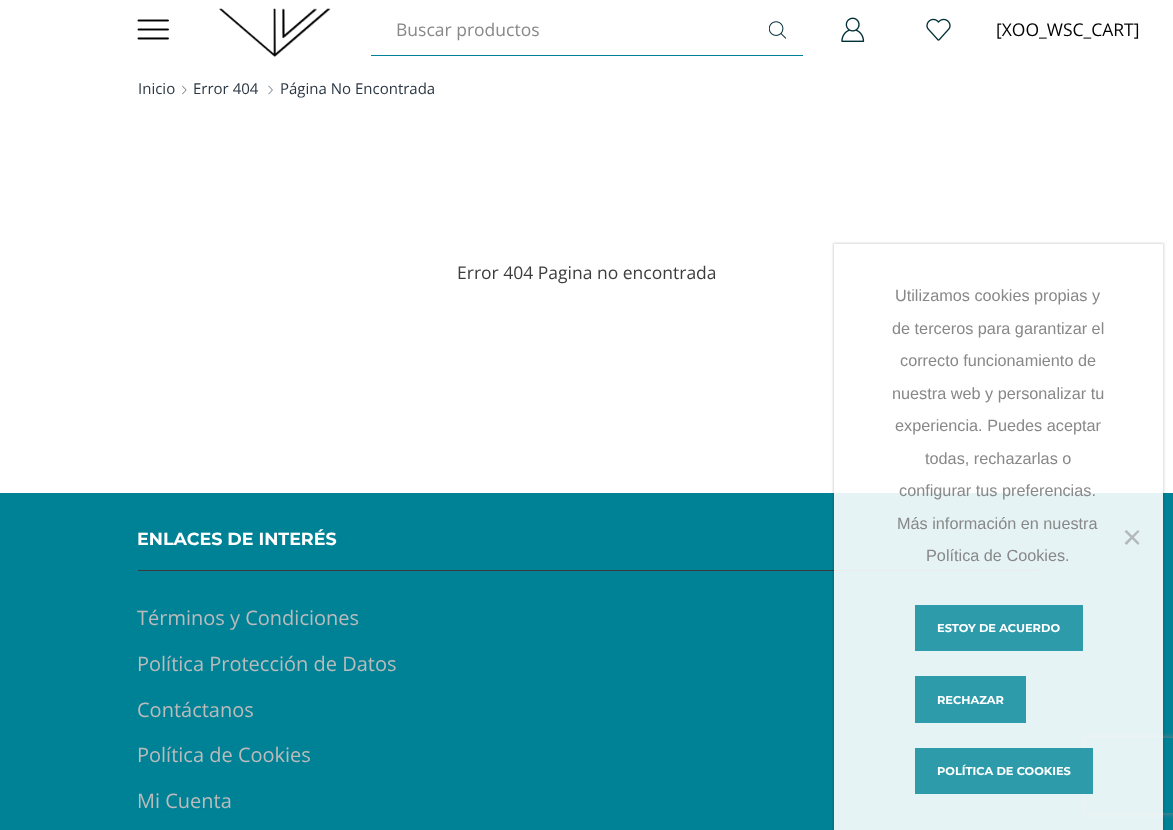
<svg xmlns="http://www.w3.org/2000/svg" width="1173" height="830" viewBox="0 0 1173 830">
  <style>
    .t1 { font: 17.5px Open Sans; fill: #888; }
    .t2 { font: 17.5px Open Sans; fill: #000; }
    .t3 { font: 15px Open Sans; fill: #2b3743; }
    .t4 { font: 17.5px Open Sans; fill: #3d3d3d; }
    .t5 { font: bold 17.5px Montserrat; fill: #fff; }
    .t6 { font: 20px Open Sans; fill: #bbb; }
    .t7 { font: 16.25px Liberation Sans; fill: #888; }
    .t8 { font: bold 11.4px Montserrat; fill: #fff; }
  </style>
  <defs>
    <clipPath id="clip1"><path d="M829 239H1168V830H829ZM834 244H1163V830H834Z" clip-rule="evenodd"/></clipPath>
    <clipPath id="clip2"><path d="M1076 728H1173V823H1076ZM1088.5 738H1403.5C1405 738 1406 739 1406 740.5V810.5C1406 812 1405 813 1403.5 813H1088.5C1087 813 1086 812 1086 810.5V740.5C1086 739 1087 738 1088.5 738Z" clip-rule="evenodd"/></clipPath>
  </defs>
  <rect width="100%" height="100%" fill="#fff"/>
  <image x="137" y="19" width="32" height="21" href="images/1.png"/>
  <image x="219" y="8" width="112" height="49" href="images/2.png"/>
  <rect x="371" y="55" width="432" height="1" fill="#008296"/>
  <text x="396" y="36" class="t1">Buscar productos</text>
  <image x="769" y="21" width="17" height="18" href="images/3.png"/>
  <image x="841" y="17" width="24" height="25" href="images/4.png"/>
  <image x="926" y="18" width="25" height="23" href="images/5.png"/>
  <text x="996" y="36" class="t2">[XOO_WSC_CART]</text>
  <text x="138" y="94" class="t3">Inicio</text>
  <image x="182" y="85" width="5" height="10" href="images/6.png"/>
  <text x="193" y="94" class="t3">Error 404</text>
  <image x="268" y="85" width="5" height="10" href="images/7.png"/>
  <text x="280" y="94" class="t3">Página No Encontrada</text>
  <text x="457" y="279" class="t4">Error 404 Pagina no encontrada</text>
  <rect x="0" y="493" width="1173" height="337" fill="#008296"/>
  <rect x="138" y="570" width="900" height="1" fill="#393939"/>
  <text x="137" y="545" class="t5">ENLACES DE INTERÉS</text>
  <text x="137" y="625" class="t6">Términos y Condiciones</text>
  <text x="137" y="671" class="t6">Política Protección de Datos</text>
  <text x="137" y="717" class="t6">Contáctanos</text>
  <text x="137" y="762" class="t6">Política de Cookies</text>
  <text x="137" y="808" class="t6">Mi Cuenta</text>
  <g clip-path="url(#clip1)">
    <rect x="833" y="243" width="331" height="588" fill="#00000026" filter="blur(1px)"/>
  </g>
  <g clip-path="url(#clip2)">
    <rect x="1086" y="738" width="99" height="75" rx="2.5" fill="#808080" filter="blur(3px)"/>
  </g>
  <rect x="834" y="244" width="329" height="586" fill="#ffffffe6"/>
  <text x="895" y="301" class="t7">Utilizamos cookies propias y</text>
  <text x="892" y="334" class="t7">de terceros para garantizar el</text>
  <text x="900" y="366" class="t7">correcto funcionamiento de</text>
  <text x="892" y="399" class="t7">nuestra web y personalizar tu</text>
  <text x="895" y="431" class="t7">experiencia. Puedes aceptar</text>
  <text x="925" y="464" class="t7">todas, rechazarlas o</text>
  <text x="899" y="496" class="t7">configurar tus preferencias.</text>
  <text x="897" y="529" class="t7">Más información en nuestra</text>
  <text x="926" y="561" class="t7">Política de Cookies.</text>
  <path d="M1138 530L1139.5 531.5L1126.5 545L1124.5 543Z" fill="#b3b9ba"/>
  <path d="M1124.5 531.5L1126.5 530L1139.5 543L1138 545Z" fill="#b3b9ba"/>
  <rect x="915" y="605" width="168" height="46" fill="#2e9bab"/>
  <text x="937" y="632" class="t8">ESTOY DE ACUERDO</text>
  <rect x="915" y="676" width="111" height="47" fill="#2e9bab"/>
  <text x="937" y="704" class="t8">RECHAZAR</text>
  <rect x="915" y="748" width="178" height="46" fill="#2e9bab"/>
  <text x="937" y="775" class="t8">POLÍTICA DE COOKIES</text>
</svg>
